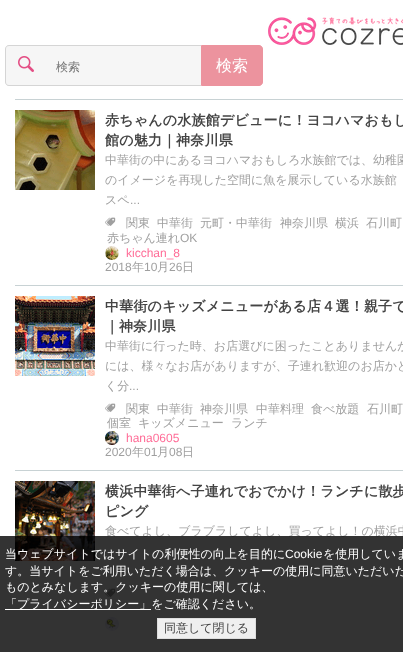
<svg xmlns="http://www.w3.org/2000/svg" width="403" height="652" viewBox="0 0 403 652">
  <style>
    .t1 { font: 500 12px WenQuanYi Zen Hei; fill: #757575; }
    .t2 { font: 500 16px WenQuanYi Zen Hei; fill: #fff; }
    .t3 { font: bold 14px WenQuanYi Zen Hei; letter-spacing: 0.2px; fill: #444; }
    .t4 { font: 500 12px WenQuanYi Zen Hei; fill: #9f9f9f; }
    .t5 { font: 12px Liberation Sans; fill: #9f9f9f; }
    .t6 { font: 12px Liberation Sans; fill: #ff6c97; }
    .t7 { font: 500 12px WenQuanYi Zen Hei; fill: #fff; }
    .t8 { font: 12px Liberation Sans; fill: #fff; }
    .t9 { font: 500 12px WenQuanYi Zen Hei; fill: #444; }
  </style>
  <rect width="100%" height="100%" fill="#fff"/>
  <image x="268" y="17" width="135" height="28" href="images/1.png"/>
  <path d="M9 45H46V86H9C7 86 5 84 5 82V49C5 47 7 45 9 45Z" fill="#f6f6f6"/>
  <path d="M9 45H46V86H9C7 86 5 84 5 82V49C5 47 7 45 9 45ZM9 46H46V85H9C7 85 6 84 6 82V49C6 47 7 46 9 46Z" fill="#d5d5d5" fill-rule="evenodd"/>
  <image x="18" y="56" width="16" height="16" href="images/2.png"/>
  <rect x="46" y="46" width="155" height="39" fill="#f6f6f6"/>
  <rect x="46" y="45" width="155" height="1" fill="#d5d5d5"/>
  <rect x="46" y="85" width="155" height="1" fill="#d5d5d5"/>
  <text x="56" y="71" class="t1">検索</text>
  <path d="M201.5 45.5H259C261 45.5 262.5 47 262.5 49V82C262.5 84 261 85.5 259 85.5H201.5Z" fill="#ec939e" stroke="#ec939e"/>
  <text x="216" y="71" class="t2">検索</text>
  <rect x="15" y="99" width="388" height="1" fill="#c8d2d4"/>
  <rect x="15" y="285" width="388" height="1" fill="#c8d2d4"/>
  <image x="15" y="110" width="80" height="80" href="images/3.png"/>
  <text x="105" y="125" class="t3">赤ちゃんの水族館デビューに！ヨコハマおもし</text>
  <text x="105" y="145" class="t3">館の魅力｜神奈川県</text>
  <text x="105" y="164" class="t4">中華街の中にあるヨコハマおもしろ水族館では、幼稚園</text>
  <text x="105" y="184" class="t4">のイメージを再現した空間に魚を展示している水族館</text>
  <text x="105" y="204" class="t4">スペ</text>
  <text x="130" y="204" class="t5">...</text>
  <image x="105" y="217" width="11" height="9" href="images/4.png"/>
  <text x="126" y="227" class="t4">関東</text>
  <text x="157" y="227" class="t4">中華街</text>
  <text x="200" y="227" class="t4">元町・中華街</text>
  <text x="280" y="227" class="t4">神奈川県</text>
  <text x="335" y="227" class="t4">横浜</text>
  <text x="366" y="227" class="t4">石川町</text>
  <text x="107" y="242" class="t4">赤ちゃん連れ</text>
  <text x="180" y="242" class="t5">OK</text>
  <image x="105" y="246" width="14" height="14" href="images/5.png"/>
  <text x="126" y="257" class="t6">kicchan_8</text>
  <text x="105" y="271" class="t5">2018</text>
  <text x="132" y="271" class="t4">年</text>
  <text x="144" y="271" class="t5">10</text>
  <text x="157" y="271" class="t4">月</text>
  <text x="169" y="271" class="t5">26</text>
  <text x="182" y="271" class="t4">日</text>
  <rect x="15" y="470" width="388" height="1" fill="#c8d2d4"/>
  <image x="15" y="296" width="80" height="80" href="images/6.png"/>
  <text x="105" y="311" class="t3">中華街のキッズメニューがある店４選！親子で</text>
  <text x="105" y="331" class="t3">｜神奈川県</text>
  <text x="105" y="350" class="t4">中華街に行った時、お店選びに困ったことありませんか</text>
  <text x="105" y="370" class="t4">には、様々なお店がありますが、子連れ歓迎のお店かど</text>
  <text x="105" y="390" class="t4">く分</text>
  <text x="129" y="390" class="t5">...</text>
  <image x="105" y="403" width="11" height="9" href="images/4.png"/>
  <text x="126" y="413" class="t4">関東</text>
  <text x="157" y="413" class="t4">中華街</text>
  <text x="200" y="413" class="t4">神奈川県</text>
  <text x="256" y="413" class="t4">中華料理</text>
  <text x="311" y="413" class="t4">食べ放題</text>
  <text x="367" y="413" class="t4">石川町</text>
  <text x="107" y="427" class="t4">個室</text>
  <text x="138" y="427" class="t4">キッズメニュー</text>
  <text x="231" y="427" class="t4">ランチ</text>
  <image x="105" y="431" width="14" height="14" href="images/7.png"/>
  <text x="126" y="442" class="t6">hana0605</text>
  <text x="105" y="456" class="t5">2020</text>
  <text x="132" y="456" class="t4">年</text>
  <text x="144" y="456" class="t5">01</text>
  <text x="157" y="456" class="t4">月</text>
  <text x="169" y="456" class="t5">08</text>
  <text x="182" y="456" class="t4">日</text>
  <image x="15" y="481" width="80" height="80" href="images/8.png"/>
  <text x="105" y="496" class="t3">横浜中華街へ子連れでおでかけ！ランチに散歩</text>
  <text x="105" y="516" class="t3">ピング</text>
  <text x="105" y="535" class="t4">食べてよし、ブラブラしてよし、買ってよし！の横浜中</text>
  <image x="105" y="588" width="11" height="9" href="images/4.png"/>
  <image x="105" y="617" width="14" height="14" href="images/9.png"/>
  <rect x="0" y="536" width="403" height="116" fill="#000000cc"/>
  <text x="5" y="558" class="t7">当ウェブサイトではサイトの利便性の向上を目的に</text>
  <text x="285" y="558" class="t8">Cookie</text>
  <text x="323" y="558" class="t7">を使用していま</text>
  <text x="5" y="575" class="t7">す。当サイトをご利用いただく場合は、クッキーの使用に同意いただいた</text>
  <text x="5" y="591" class="t7">ものとみなします。クッキーの使用に関しては、</text>
  <rect x="5" y="609" width="146" height="1" fill="#fefefe"/>
  <text x="5" y="608" class="t7">「プライバシーポリシー」をご確認ください。</text>
  <rect x="157.5" y="618.5" width="98" height="20" fill="#efefef" stroke="#ddd"/>
  <text x="164" y="632" class="t9">同意して閉じる</text>
</svg>
